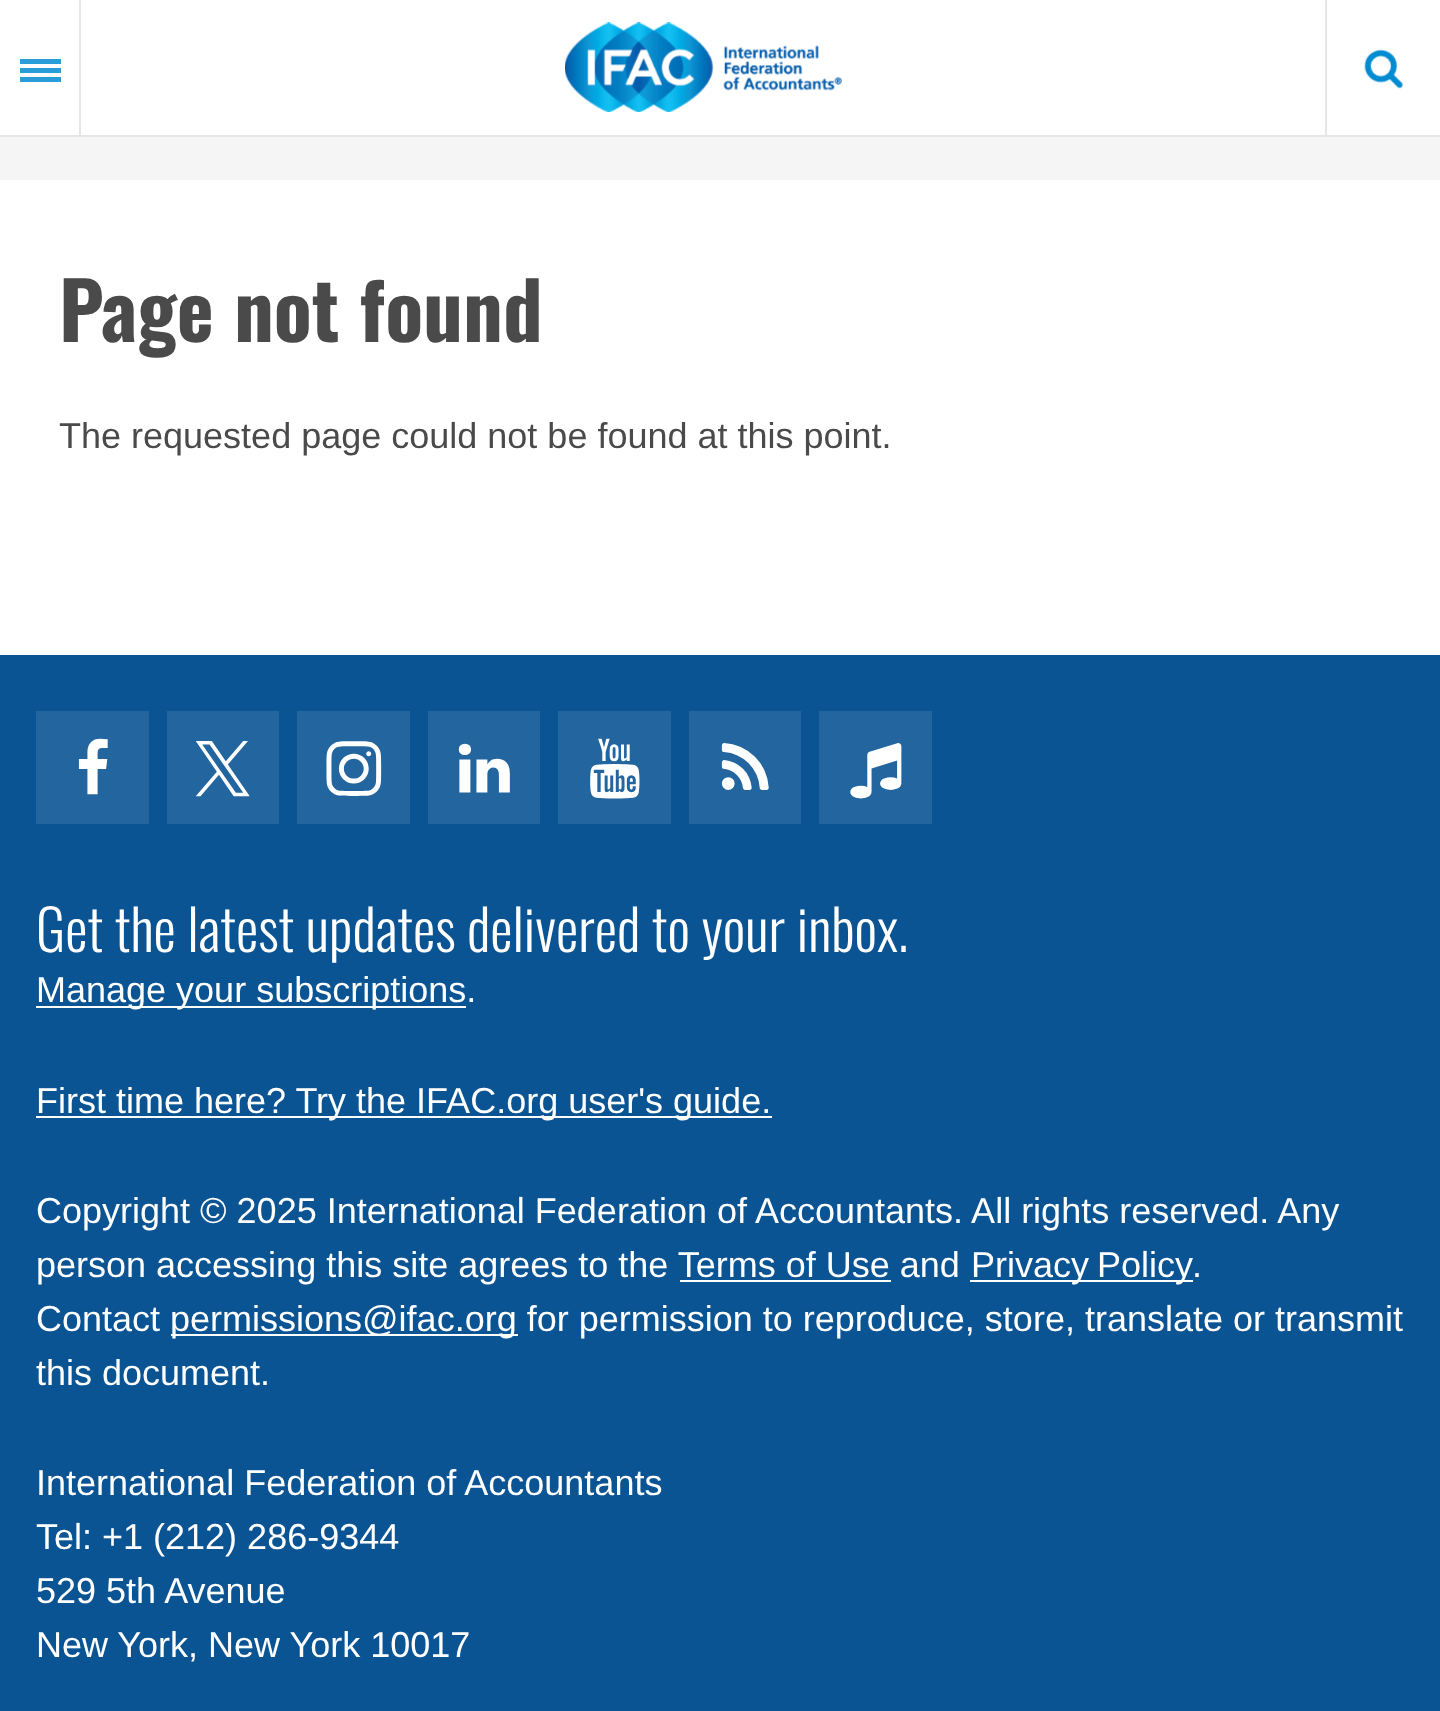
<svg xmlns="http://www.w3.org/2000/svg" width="1440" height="1711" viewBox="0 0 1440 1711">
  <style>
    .t1 { font: bold 78.75px Oswald; fill: #4a4a4a; }
    .t2 { font: 36px Liberation Sans; fill: #4a4a4a; }
    .t3 { font: 300 56.25px Oswald; fill: #fff; }
    .t4 { font: 36px Liberation Sans; fill: #fff; }
  </style>
  <rect width="100%" height="100%" fill="#f5f5f5"/>
  <rect x="0" y="0" width="1440" height="135" fill="#fff"/>
  <rect x="0" y="135" width="1440" height="2" fill="#e6e6e6"/>
  <rect x="79" y="0" width="2" height="135" fill="#e6e6e6"/>
  <rect x="20" y="59" width="41" height="5" fill="#289dd8"/>
  <rect x="20" y="68" width="41" height="5" fill="#289dd8"/>
  <rect x="20" y="77" width="41" height="5" fill="#289dd8"/>
  <image x="565" y="22" width="277" height="90" href="images/1.png"/>
  <rect x="1325" y="0" width="2" height="135" fill="#e6e6e6"/>
  <image x="1364" y="49" width="39" height="40" href="images/2.png"/>
  <rect x="0" y="180" width="1440" height="475" fill="#fff"/>
  <text x="59" y="342" class="t1">Page not found</text>
  <text x="59" y="448" class="t2">The requested page could not be found at this point.</text>
  <rect x="0" y="655" width="1440" height="1056" fill="#0b5494"/>
  <rect x="36" y="711" width="113" height="113" fill="#23659f"/>
  <image x="78" y="738" width="30" height="57" href="images/3.png"/>
  <rect x="167" y="711" width="112" height="113" fill="#23659f"/>
  <image x="196" y="741" width="54" height="56" href="images/4.png"/>
  <rect x="297" y="711" width="113" height="113" fill="#23659f"/>
  <image x="326" y="741" width="56" height="55" href="images/5.png"/>
  <rect x="428" y="711" width="112" height="113" fill="#23659f"/>
  <image x="458" y="743" width="52" height="50" href="images/6.png"/>
  <rect x="558" y="711" width="113" height="113" fill="#23659f"/>
  <image x="590" y="738" width="50" height="61" href="images/7.png"/>
  <rect x="689" y="711" width="112" height="113" fill="#23659f"/>
  <image x="721" y="743" width="48" height="47" href="images/8.png"/>
  <rect x="819" y="711" width="113" height="113" fill="#23659f"/>
  <image x="850" y="743" width="52" height="56" href="images/9.png"/>
  <text x="36" y="952" class="t3">Get the latest updates delivered to your inbox.</text>
  <rect x="36" y="1006" width="430" height="2" fill="#fff"/>
  <text x="36" y="1002" class="t4">Manage your subscriptions.</text>
  <rect x="36" y="1116" width="736" height="2" fill="#fff"/>
  <text x="36" y="1113" class="t4">First time here? Try the IFAC.org user's guide.</text>
  <text x="36" y="1223" class="t4">Copyright © 2025 International Federation of Accountants. All rights reserved. Any</text>
  <text x="36" y="1277" class="t4">person accessing this site agrees to the Terms of Use and</text>
  <rect x="970" y="1280" width="223" height="2" fill="#fff"/>
  <text x="971" y="1277" word-spacing="-2" class="t4">Privacy Policy</text>
  <text x="1192" y="1277" class="t4">.</text>
  <rect x="680" y="1280" width="211" height="2" fill="#fff"/>
  <text x="36" y="1331" class="t4">Contact</text>
  <rect x="171" y="1334" width="347" height="2" fill="#fff"/>
  <text x="170" y="1331" class="t4">permissions@ifac.org for permission to reproduce, store, translate or transmit</text>
  <text x="36" y="1385" class="t4">this document.</text>
  <text x="36" y="1495" class="t4">International Federation of Accountants</text>
  <text x="36" y="1549" class="t4">Tel: +1 (212) 286-9344</text>
  <text x="36" y="1603" class="t4">529 5th Avenue</text>
  <text x="36" y="1657" class="t4">New York, New York 10017</text>
</svg>
